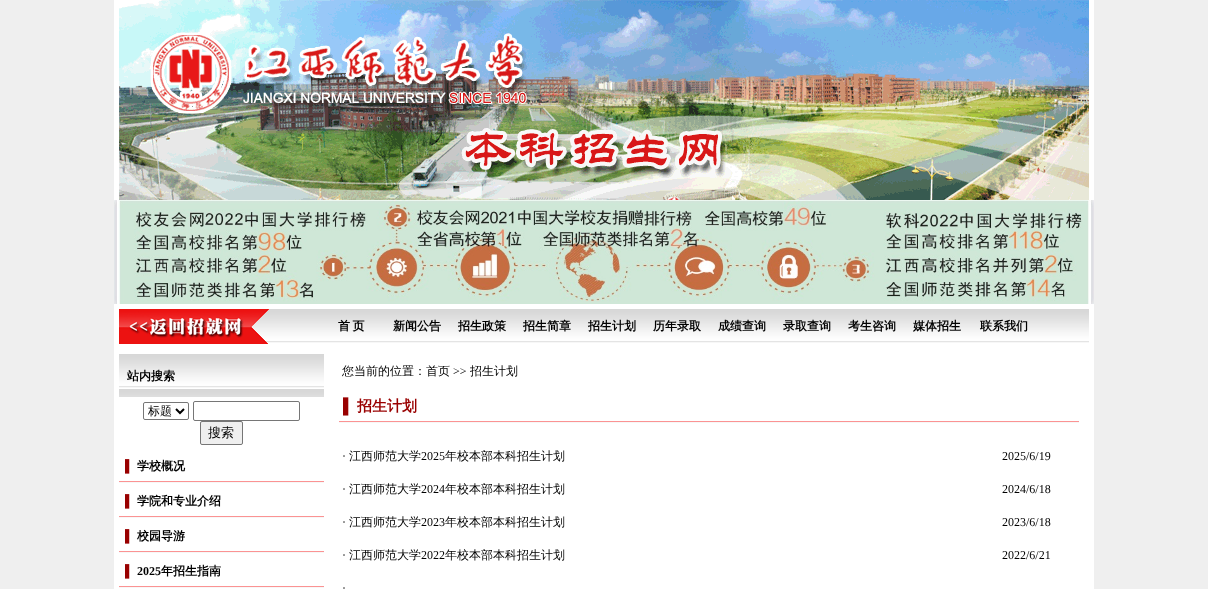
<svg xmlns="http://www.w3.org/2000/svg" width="1208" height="589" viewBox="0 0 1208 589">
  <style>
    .t1 { font: bold 12px WenQuanYi Zen Hei; fill: #000; }
    .t2 { font: 500 12px WenQuanYi Zen Hei; fill: #000; }
    .t3 { font: 500 13px WenQuanYi Zen Hei; fill: #000; }
    .t4 { font: bold 12px Liberation Serif; fill: #900; }
    .t5 { font: bold 12px Liberation Serif; fill: #000; }
    .t6 { font: 12px Liberation Serif; fill: #000; }
    .t7 { font: bold 15px Liberation Serif; fill: #900; }
    .t8 { font: bold 15px WenQuanYi Zen Hei; fill: #900; }
  </style>
  <rect width="100%" height="100%" fill="#efefef"/>
  <rect x="114" y="0" width="980" height="589" fill="#fff"/>
  <image x="119" y="0" width="970" height="200" href="images/1.png"/>
  <image x="114" y="200" width="980" height="104" href="images/2.png"/>
  <image x="252" y="309" width="837" height="34" href="images/3.png"/>
  <image x="119" y="309" width="150" height="35" href="images/4.png"/>
  <text x="338" y="330" word-spacing="-1" class="t1">首 页</text>
  <text x="393" y="330" class="t1">新闻公告</text>
  <text x="458" y="330" class="t1">招生政策</text>
  <text x="523" y="330" class="t1">招生简章</text>
  <text x="588" y="330" class="t1">招生计划</text>
  <text x="653" y="330" class="t1">历年录取</text>
  <text x="718" y="330" class="t1">成绩查询</text>
  <text x="783" y="330" class="t1">录取查询</text>
  <text x="848" y="330" class="t1">考生咨询</text>
  <text x="913" y="330" class="t1">媒体招生</text>
  <text x="980" y="330" class="t1">联系我们</text>
  <image x="119" y="354" width="205" height="43" href="images/5.png"/>
  <text x="127" y="380" class="t1">站内搜索</text>
  <rect x="143.5" y="402.5" width="45" height="17" rx="1.5" fill="none" stroke="#767676"/>
  <path d="M176 409L180 413L184 409" fill="none" stroke="#000" stroke-width="2"/>
  <text x="148" y="415" class="t2">标题</text>
  <rect x="193.5" y="401.5" width="106" height="19" rx="1.5" fill="none" stroke="#767676"/>
  <rect x="200.5" y="421.5" width="42" height="23" rx="1.5" fill="#efefef" stroke="#767676"/>
  <text x="208" y="437" class="t3">搜索</text>
  <image x="119" y="481" width="205" height="2" href="images/6.png"/>
  <text x="125" y="470" class="t4">▌</text>
  <text x="137" y="470" class="t1">学校概况</text>
  <image x="119" y="516" width="205" height="2" href="images/6.png"/>
  <text x="125" y="505" class="t4">▌</text>
  <text x="137" y="505" class="t1">学院和专业介绍</text>
  <image x="119" y="551" width="205" height="2" href="images/6.png"/>
  <text x="125" y="540" class="t4">▌</text>
  <text x="137" y="540" class="t1">校园导游</text>
  <image x="119" y="586" width="205" height="2" href="images/6.png"/>
  <text x="125" y="575" class="t4">▌</text>
  <text x="137" y="575" class="t5">2025</text>
  <text x="161" y="575" class="t1">年招生指南</text>
  <text x="342" y="375" class="t2">您当前的位置：首页</text>
  <text x="453" y="375" class="t6">&gt;&gt;</text>
  <text x="470" y="375" class="t2">招生计划</text>
  <image x="339" y="421" width="740" height="2" href="images/7.png"/>
  <text x="343" y="411" class="t7">▌</text>
  <text x="357" y="411" class="t8">招生计划</text>
  <text x="342" y="460" class="t6">·</text>
  <text x="349" y="460" class="t2">江西师范大学</text>
  <text x="421" y="460" class="t6">2025</text>
  <text x="445" y="460" class="t2">年校本部本科招生计划</text>
  <text x="1002" y="460" class="t6">2025/6/19</text>
  <text x="342" y="493" class="t6">·</text>
  <text x="349" y="493" class="t2">江西师范大学</text>
  <text x="421" y="493" class="t6">2024</text>
  <text x="445" y="493" class="t2">年校本部本科招生计划</text>
  <text x="1002" y="493" class="t6">2024/6/18</text>
  <text x="342" y="526" class="t6">·</text>
  <text x="349" y="526" class="t2">江西师范大学</text>
  <text x="421" y="526" class="t6">2023</text>
  <text x="445" y="526" class="t2">年校本部本科招生计划</text>
  <text x="1002" y="526" class="t6">2023/6/18</text>
  <text x="342" y="559" class="t6">·</text>
  <text x="349" y="559" class="t2">江西师范大学</text>
  <text x="421" y="559" class="t6">2022</text>
  <text x="445" y="559" class="t2">年校本部本科招生计划</text>
  <text x="1002" y="559" class="t6">2022/6/21</text>
  <text x="342" y="592" class="t6">·</text>
</svg>
